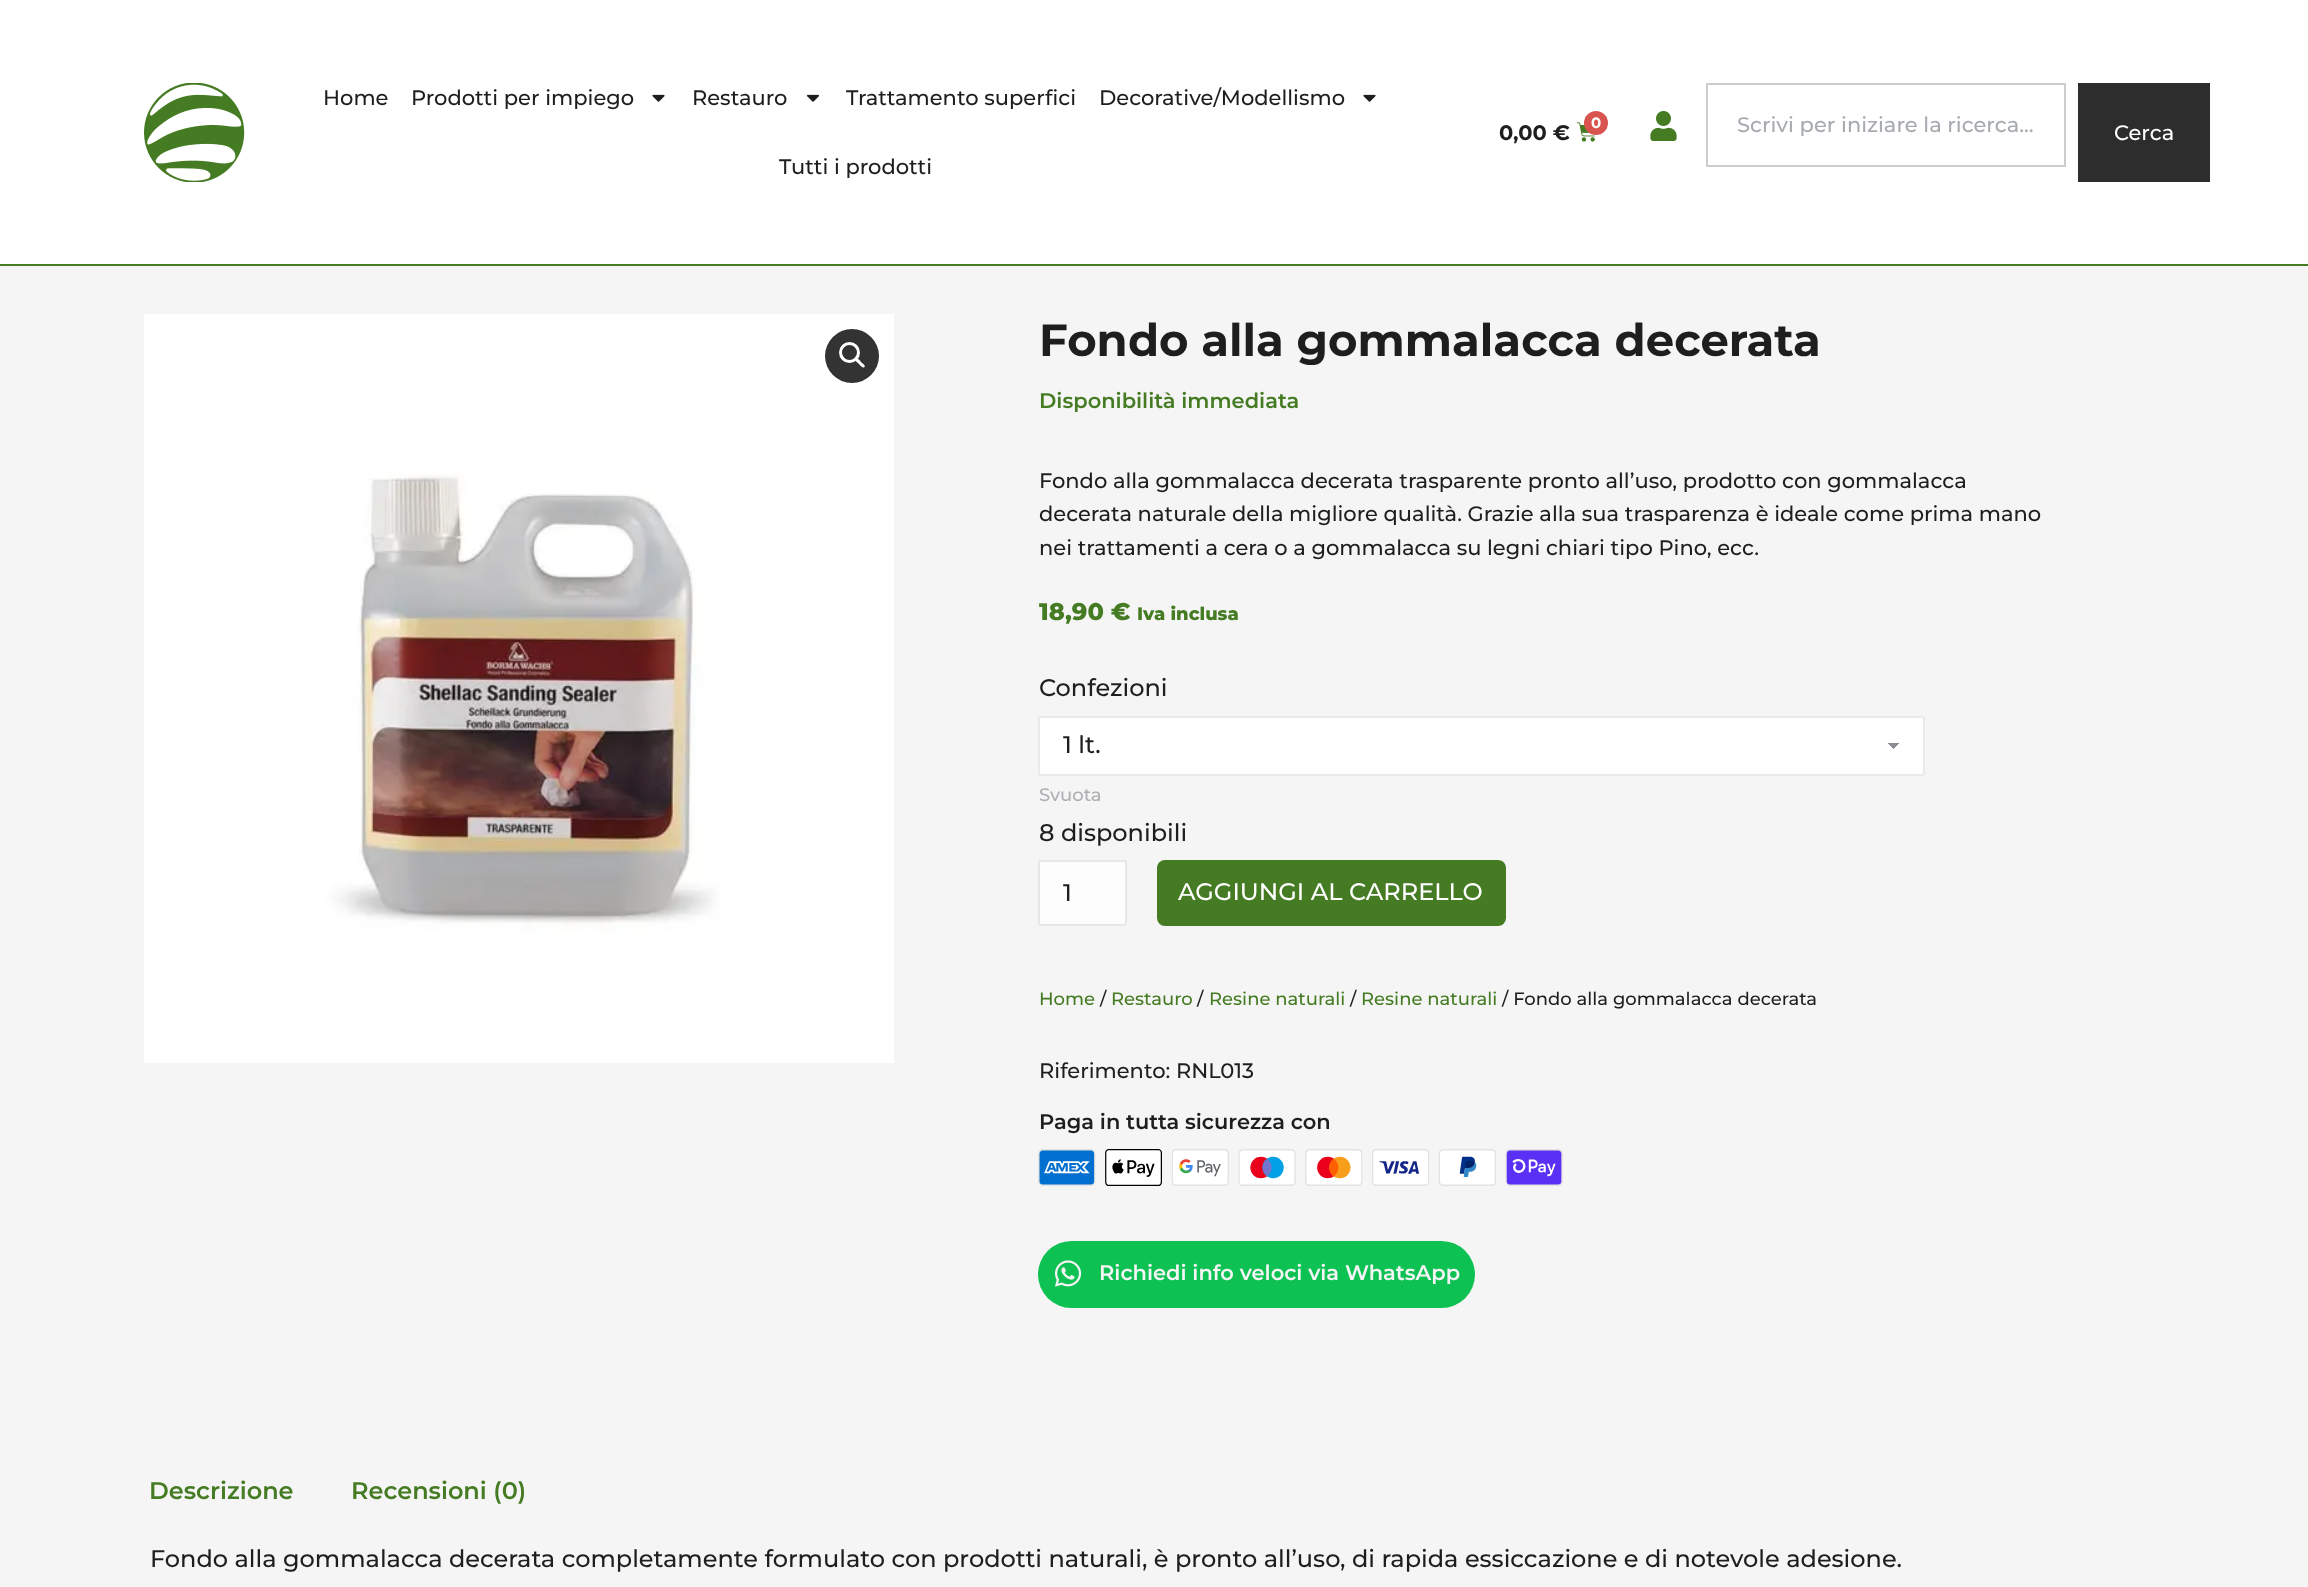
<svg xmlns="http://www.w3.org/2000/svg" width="2308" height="1587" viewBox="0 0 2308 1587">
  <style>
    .t1 { font: 500 21px Montserrat; fill: #1e1e1e; }
    .t2 { font: bold 15px Montserrat; fill: #fff; }
    .t3 { font: bold 21px Montserrat; fill: #1e1e1e; }
    .t4 { font: 500 21px Montserrat; fill: #a7abb0; }
    .t5 { font: 500 21px Montserrat; fill: #fff; }
    .t6 { font: bold 45px Montserrat; fill: #1e1e1e; }
    .t7 { font: 600 21px Montserrat; fill: #457b22; }
    .t8 { font: 800 24px Montserrat; fill: #457b22; }
    .t9 { font: 800 18px Montserrat; fill: #457b22; }
    .t10 { font: 500 24px Montserrat; fill: #1e1e1e; }
    .t11 { font: 500 18px Montserrat; fill: #adafb3; }
    .t12 { font: 500 24px Montserrat; fill: #fff; }
    .t13 { font: 500 18px Montserrat; fill: #457b22; }
    .t14 { font: 500 18px Montserrat; fill: #1e1e1e; }
    .t15 { font: 600 21px Montserrat; fill: #1e1e1e; }
    .t16 { font: 600 21px Montserrat; fill: #f5f5f5; }
    .t17 { font: 600 24px Montserrat; fill: #457b22; }
  </style>
  <defs>
    <linearGradient id="g1" gradientUnits="userSpaceOnUse" x1="1893" y1="742" x2="1901" y2="749"><stop offset="0.5" stop-color="#8b8d94"/><stop offset="0.5" stop-color="#fff"/></linearGradient>
    <linearGradient id="g2" gradientUnits="userSpaceOnUse" x1="1886" y1="749" x2="1893" y2="742"><stop offset="0.5" stop-color="#fff"/><stop offset="0.5" stop-color="#8b8d94"/></linearGradient>
  </defs>
  <rect width="100%" height="100%" fill="#fff"/>
  <rect x="0" y="264" width="2308" height="2" fill="#457b22"/>
  <image x="144" y="83" width="101" height="99" href="images/1.png"/>
  <text x="323" y="105" class="t1">Home</text>
  <text x="411" y="105" class="t1">Prodotti per impiego</text>
  <image x="652" y="94" width="13" height="8" href="images/2.png"/>
  <text x="692" y="105" class="t1">Restauro</text>
  <image x="806" y="94" width="14" height="8" href="images/3.png"/>
  <text x="846" y="105" class="t1">Trattamento superfici</text>
  <text x="1099" y="105" class="t1">Decorative/Modellismo</text>
  <image x="1363" y="94" width="13" height="8" href="images/2.png"/>
  <text x="779" y="174" class="t1">Tutti i prodotti</text>
  <image x="1577" y="122" width="18" height="20" href="images/4.png"/>
  <circle cx="1596" cy="123" r="12" fill="#d9534f"/>
  <text x="1591" y="128" class="t2">0</text>
  <text x="1499" y="140" class="t3">0,00 €</text>
  <image x="1650" y="111" width="27" height="30" href="images/5.png"/>
  <rect x="1707" y="84" width="358" height="82" fill="none" stroke="#cdcdcd" stroke-width="2"/>
  <text x="1737" y="132" class="t4">Scrivi per iniziare la ricerca...</text>
  <rect x="2078" y="83" width="132" height="99" fill="#2d2d2d"/>
  <text x="2114" y="140" class="t5">Cerca</text>
  <rect x="0" y="266" width="2308" height="1321" fill="#f5f5f5"/>
  <image x="144" y="314" width="750" height="749" href="images/6.png"/>
  <circle cx="852" cy="356" r="27" fill="#333"/>
  <circle cx="849.5" cy="352.5" r="9" fill="none" stroke="#fff" stroke-width="3"/>
  <path d="M856 359C857.5 357 860.5 361 861 362C862 363 866 365.5 864.5 367C862.5 369 860 365 859 364C858 363 854 360.5 856 359Z" fill="#fff"/>
  <text x="1039" y="356" class="t6">Fondo alla gommalacca decerata</text>
  <text x="1039" y="408" class="t7">Disponibilità immediata</text>
  <text x="1039" y="488" class="t1">Fondo alla gommalacca decerata trasparente pronto all’uso, prodotto con gommalacca</text>
  <text x="1039" y="521" class="t1">decerata naturale della migliore qualità. Grazie alla sua trasparenza è ideale come prima mano</text>
  <text x="1039" y="555" class="t1">nei trattamenti a cera o a gommalacca su legni chiari tipo Pino, ecc.</text>
  <text x="1039" y="620" class="t8">18,90 €</text>
  <text x="1137" y="620" class="t9">Iva inclusa</text>
  <text x="1039" y="696" class="t10">Confezioni</text>
  <rect x="1038" y="716" width="887" height="60" rx="3" fill="#fff"/>
  <rect x="1893" y="743" width="8" height="6" fill="url(#g1)"/>
  <rect x="1886" y="743" width="7" height="5" fill="url(#g2)"/>
  <rect x="1039" y="717" width="885" height="58" rx="2" fill="none" stroke="#3333331c" stroke-width="2"/>
  <text x="1063" y="753" class="t10">1 lt.</text>
  <text x="1039" y="801" class="t11">Svuota</text>
  <text x="1039" y="841" class="t10">8 disponibili</text>
  <rect x="1038" y="860" width="89" height="66" rx="3" fill="#fdfdfd"/>
  <rect x="1039" y="861" width="87" height="64" rx="2" fill="none" stroke="#3333331c" stroke-width="2"/>
  <text x="1063" y="901" class="t10">1</text>
  <rect x="1157" y="860" width="349" height="66" rx="8" fill="#457b22"/>
  <text x="1178" y="900" class="t12">AGGIUNGI AL CARRELLO</text>
  <text x="1039" y="1005" class="t13">Home</text>
  <text x="1100" y="1005" class="t14">/</text>
  <text x="1111" y="1005" class="t13">Restauro</text>
  <text x="1197" y="1005" class="t14">/</text>
  <text x="1209" y="1005" class="t13">Resine naturali</text>
  <text x="1350" y="1005" class="t14">/</text>
  <text x="1361" y="1005" class="t13">Resine naturali</text>
  <text x="1502" y="1005" class="t14">/ Fondo alla gommalacca decerata</text>
  <text x="1039" y="1078" class="t1">Riferimento: RNL013</text>
  <text x="1039" y="1129" class="t15">Paga in tutta sicurezza con</text>
  <image x="1038" y="1149" width="525" height="37" href="images/7.png"/>
  <rect x="1038" y="1241" width="437" height="67" rx="33.5" fill="#0dc152"/>
  <image x="1054" y="1260" width="28" height="27" href="images/8.png"/>
  <text x="1099" y="1280" class="t16">Richiedi info veloci via WhatsApp</text>
  <text x="149" y="1499" class="t17">Descrizione</text>
  <text x="351" y="1499" class="t17">Recensioni (0)</text>
  <text x="150" y="1567" class="t10">Fondo alla gommalacca decerata completamente formulato con prodotti naturali, è pronto all’uso, di rapida essiccazione e di notevole adesione.</text>
</svg>
